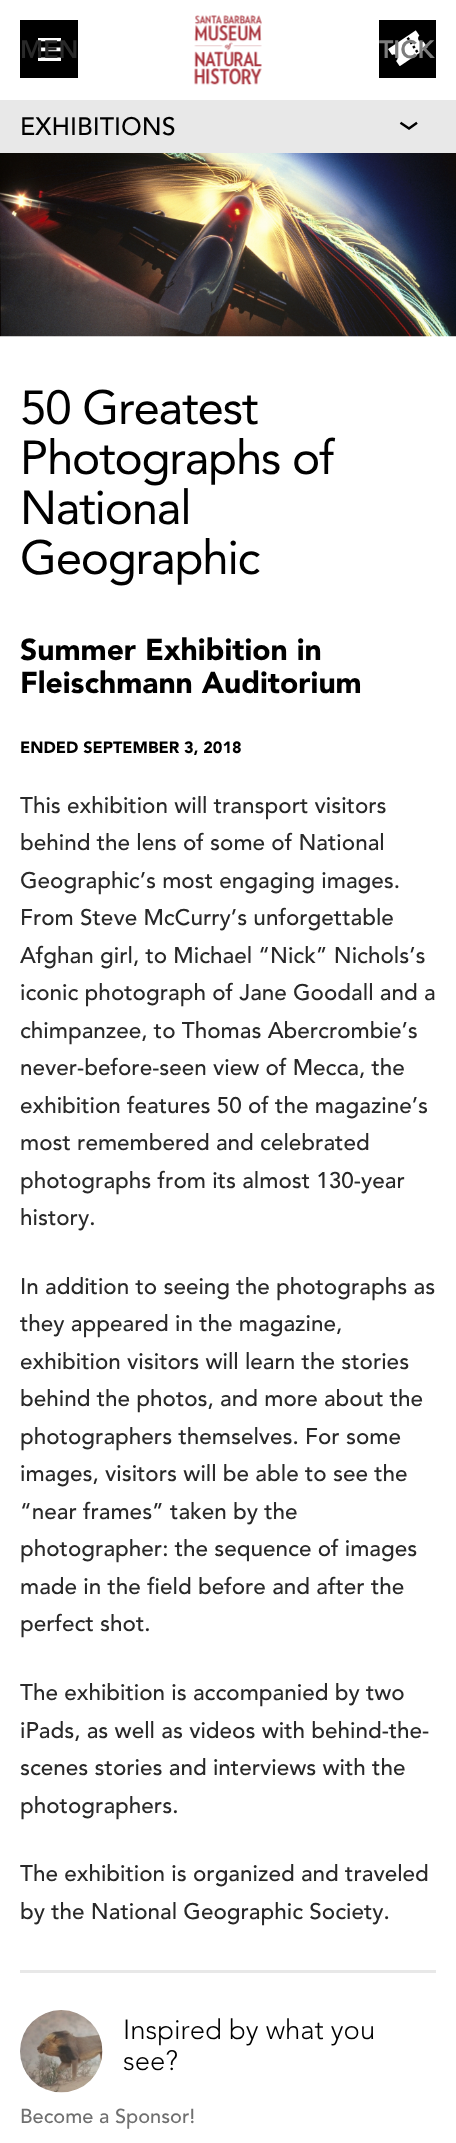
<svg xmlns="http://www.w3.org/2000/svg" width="456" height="2143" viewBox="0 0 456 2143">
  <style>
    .t1 { font: 25px 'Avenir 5'; fill: #292929; }
    .t2 { font: 25px 'Avenir 5'; fill: #7d7d7d; }
    .t3 { font: 25px 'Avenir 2'; fill: #000; }
    .t4 { font: 47.5px 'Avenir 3'; letter-spacing: -1.25px; fill: #000; }
    .t5 { font: 30px Avenir; fill: #000; }
    .t6 { font: 16.25px Avenir; fill: #000; }
    .t7 { font: 22.5px 'Avenir 2'; fill: #292929; }
    .t8 { font: 27.5px 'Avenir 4'; fill: #000; }
    .t9 { font: 20px 'Avenir 2'; fill: #707070; }
  </style>
  <rect width="100%" height="100%" fill="#fff"/>
  <rect x="20" y="20" width="58" height="58" fill="#000"/>
  <image x="38" y="38" width="23" height="23" href="images/1.png"/>
  <text x="20" y="58" class="t1">MEN</text>
  <image x="194" y="15" width="68" height="70" href="images/2.png"/>
  <rect x="379" y="20" width="57" height="58" fill="#000"/>
  <image x="388" y="30" width="40" height="36" href="images/3.png"/>
  <text x="379" y="58" class="t2">TICK</text>
  <rect x="0" y="100" width="456" height="53" fill="#e8e8e8"/>
  <path d="M416 123.5L409 128.5L401.5 123.5" fill="none" stroke="#000" stroke-width="2.5" stroke-linecap="square"/>
  <text x="20" y="135" class="t3">EXHIBITIONS</text>
  <image x="0" y="153" width="456" height="184" href="images/4.png"/>
  <text x="20" y="424" class="t4">50 Greatest</text>
  <text x="20" y="474" class="t4">Photographs of</text>
  <text x="20" y="524" class="t4">National</text>
  <text x="20" y="574" class="t4">Geographic</text>
  <text x="20" y="660" class="t5">Summer Exhibition in</text>
  <text x="20" y="693" class="t5">Fleischmann Auditorium</text>
  <text x="20" y="753" class="t6">ENDED SEPTEMBER 3, 2018</text>
  <text x="20" y="813" class="t7">This exhibition will transport visitors</text>
  <text x="20" y="850" class="t7">behind the lens of some of National</text>
  <text x="20" y="888" class="t7">Geographic’s most engaging images.</text>
  <text x="20" y="925" class="t7">From Steve McCurry’s unforgettable</text>
  <text x="20" y="963" class="t7">Afghan girl, to Michael “Nick” Nichols’s</text>
  <text x="20" y="1000" class="t7">iconic photograph of Jane Goodall and a</text>
  <text x="20" y="1038" class="t7">chimpanzee, to Thomas Abercrombie’s</text>
  <text x="20" y="1075" class="t7">never-before-seen view of Mecca, the</text>
  <text x="20" y="1113" class="t7">exhibition features 50 of the magazine’s</text>
  <text x="20" y="1150" class="t7">most remembered and celebrated</text>
  <text x="20" y="1188" class="t7">photographs from its almost 130-year</text>
  <text x="20" y="1225" class="t7">history.</text>
  <text x="20" y="1294" class="t7">In addition to seeing the photographs as</text>
  <text x="20" y="1331" class="t7">they appeared in the magazine,</text>
  <text x="20" y="1369" class="t7">exhibition visitors will learn the stories</text>
  <text x="20" y="1406" class="t7">behind the photos, and more about the</text>
  <text x="20" y="1444" class="t7">photographers themselves. For some</text>
  <text x="20" y="1481" class="t7">images, visitors will be able to see the</text>
  <text x="20" y="1519" class="t7">“near frames” taken by the</text>
  <text x="20" y="1556" class="t7">photographer: the sequence of images</text>
  <text x="20" y="1594" class="t7">made in the field before and after the</text>
  <text x="20" y="1631" class="t7">perfect shot.</text>
  <text x="20" y="1700" class="t7">The exhibition is accompanied by two</text>
  <text x="20" y="1738" class="t7">iPads, as well as videos with behind-the-</text>
  <text x="20" y="1775" class="t7">scenes stories and interviews with the</text>
  <text x="20" y="1813" class="t7">photographers.</text>
  <text x="20" y="1881" class="t7">The exhibition is organized and traveled</text>
  <text x="20" y="1919" class="t7">by the National Geographic Society.</text>
  <rect x="20" y="1970" width="416" height="3" fill="#e8e8e8"/>
  <image x="20" y="2010" width="83" height="83" href="images/5.png"/>
  <text x="123" y="2039" class="t8">Inspired by what you</text>
  <text x="123" y="2070" class="t8">see?</text>
  <text x="20" y="2123" class="t9">Become a Sponsor!</text>
</svg>
